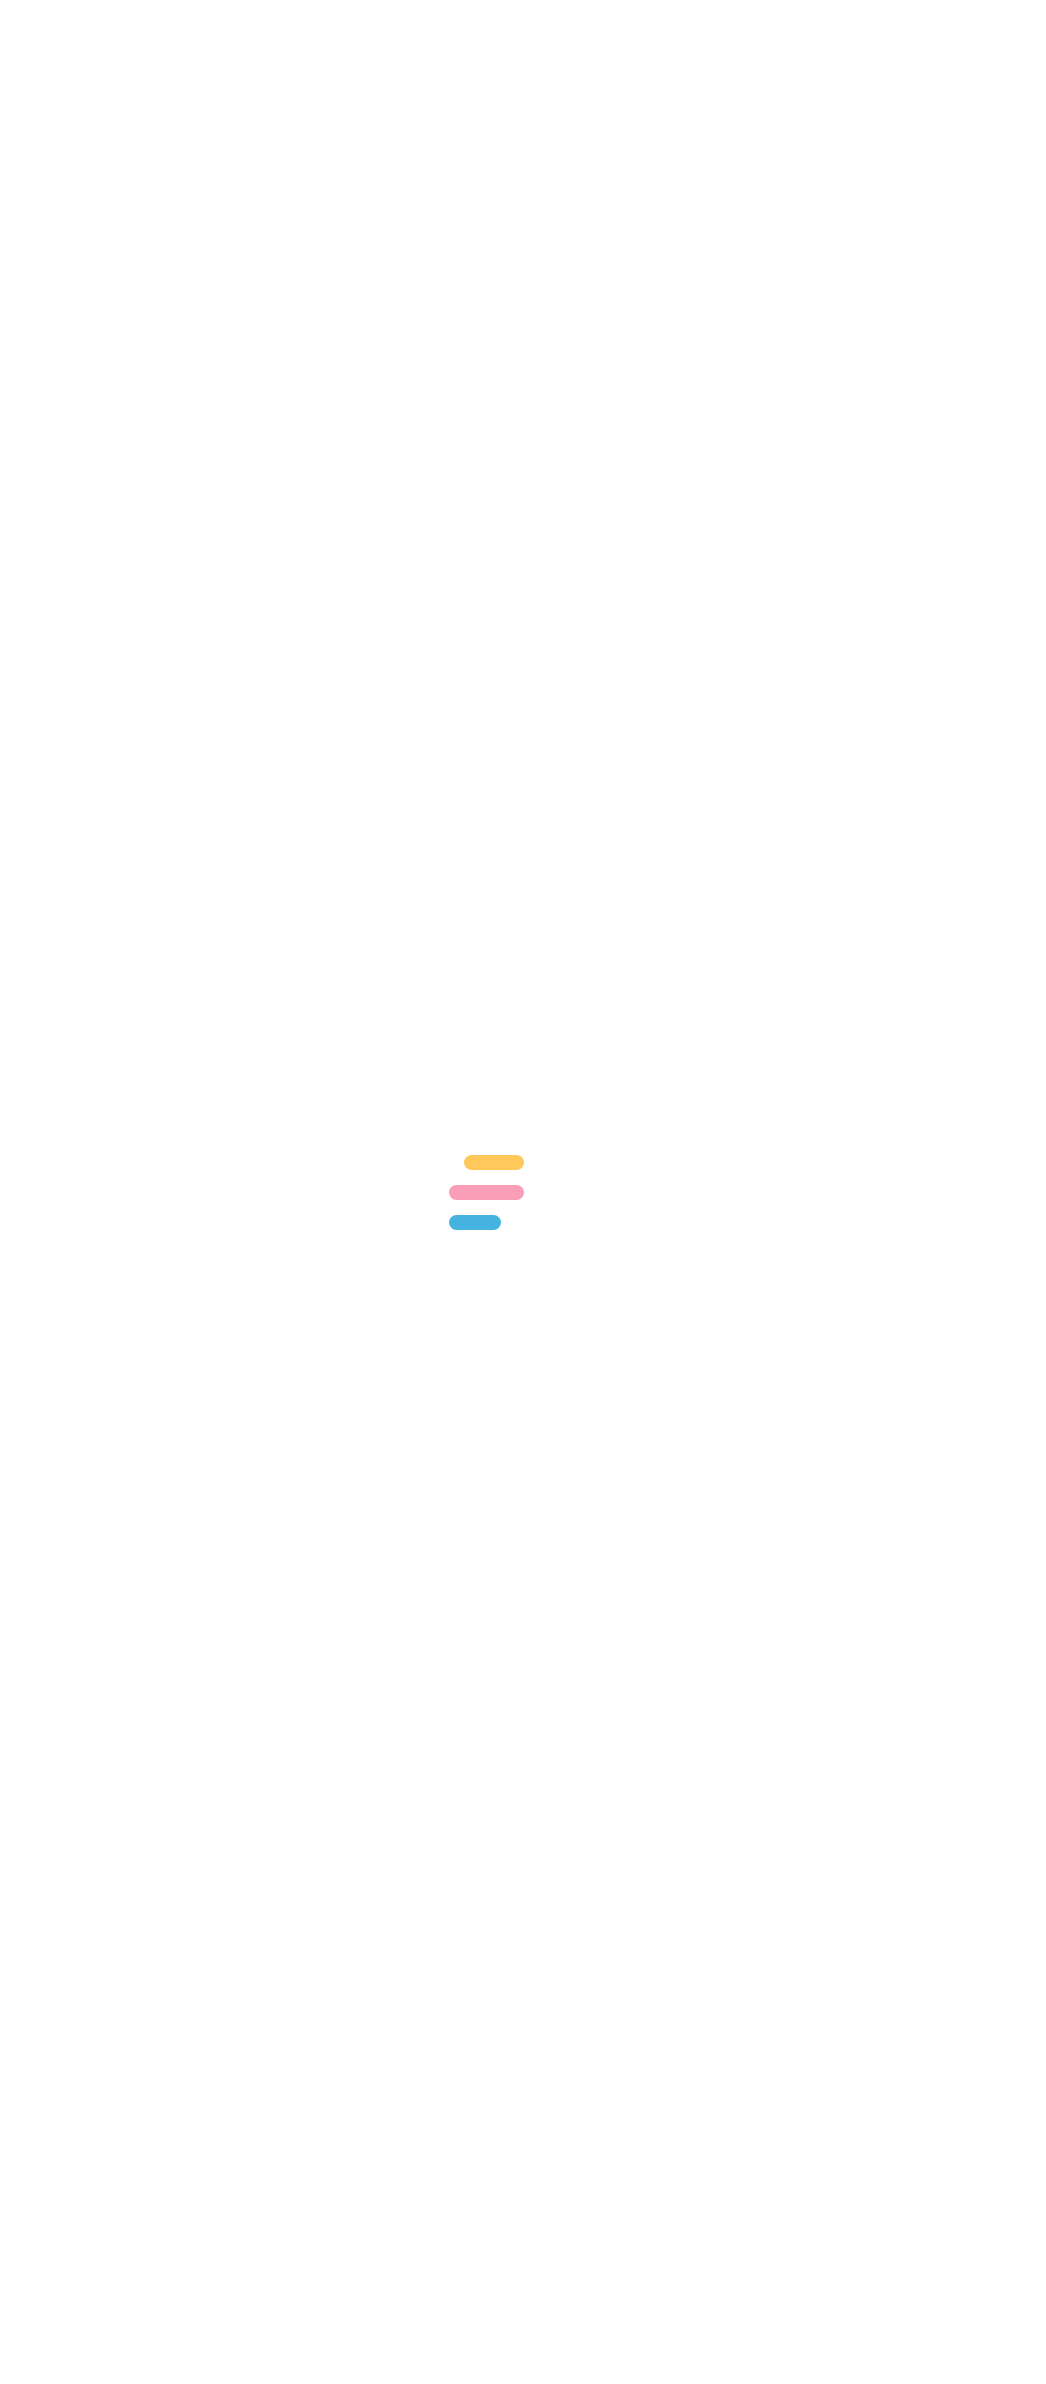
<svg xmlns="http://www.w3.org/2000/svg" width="1046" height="2384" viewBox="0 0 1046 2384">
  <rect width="100%" height="100%" fill="#fff"/>
  <rect x="449" y="1185" width="75" height="15" rx="7.5" fill="#fa9db7"/>
  <rect x="464" y="1155" width="60" height="15" rx="7.5" fill="#ffc85b"/>
  <rect x="449" y="1215" width="52" height="15" rx="7.5" fill="#45b3df"/>
</svg>
